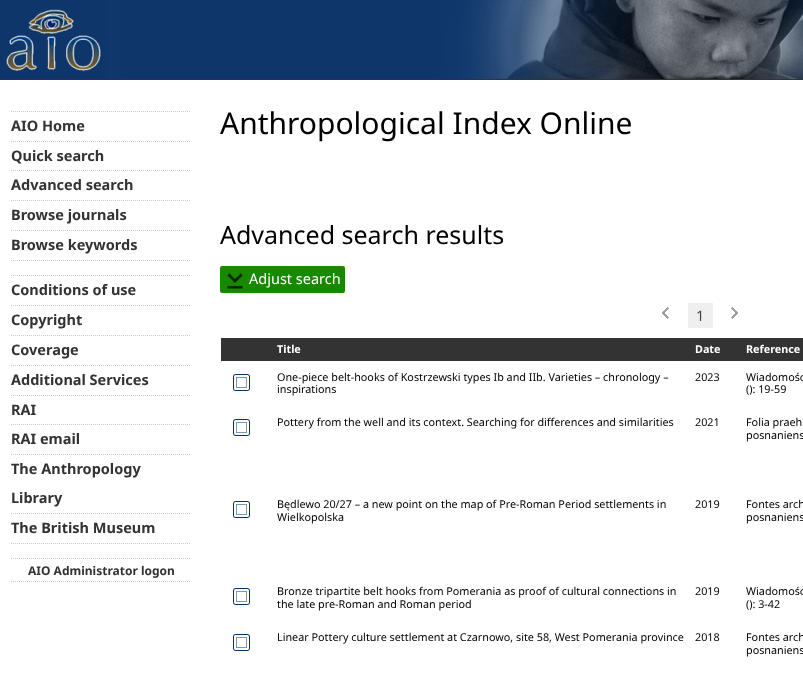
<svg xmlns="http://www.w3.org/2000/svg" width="803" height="676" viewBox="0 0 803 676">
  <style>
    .t1 { font: bold 14.5px Noto Sans; fill: #333; }
    .t2 { font: bold 12px Noto Sans; fill: #333; }
    .t3 { font: 30px Noto Sans; fill: #000; }
    .t4 { font: 25px Noto Sans; fill: #000; }
    .t5 { font: 14.5px Noto Sans; fill: #fff; }
    .t6 { font: 14.5px Noto Sans; fill: #444; }
    .t7 { font: bold 10.8px Noto Sans; fill: #fff; }
    .t8 { font: 10.8px Noto Sans; fill: #000; }
  </style>
  <defs>
    <clipPath id="clip1"><path d="M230 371H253V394H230ZM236 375H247C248 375 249 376 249 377V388C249 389 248 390 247 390H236C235 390 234 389 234 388V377C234 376 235 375 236 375Z" clip-rule="evenodd"/></clipPath>
    <clipPath id="clip2"><path d="M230 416H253V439H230ZM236 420H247C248 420 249 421 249 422V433C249 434 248 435 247 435H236C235 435 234 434 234 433V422C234 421 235 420 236 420Z" clip-rule="evenodd"/></clipPath>
    <clipPath id="clip3"><path d="M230 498H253V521H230ZM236 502H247C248 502 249 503 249 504V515C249 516 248 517 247 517H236C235 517 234 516 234 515V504C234 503 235 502 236 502Z" clip-rule="evenodd"/></clipPath>
    <clipPath id="clip4"><path d="M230 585H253V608H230ZM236 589H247C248 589 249 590 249 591V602C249 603 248 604 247 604H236C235 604 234 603 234 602V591C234 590 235 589 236 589Z" clip-rule="evenodd"/></clipPath>
    <clipPath id="clip5"><path d="M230 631H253V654H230ZM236 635H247C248 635 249 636 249 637V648C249 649 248 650 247 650H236C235 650 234 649 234 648V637C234 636 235 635 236 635Z" clip-rule="evenodd"/></clipPath>
  </defs>
  <rect width="100%" height="100%" fill="#fff"/>
  <rect x="0" y="79" width="803" height="1" fill="#333"/>
  <image x="442" y="0" width="361" height="79" href="images/1.png"/>
  <image x="108" y="0" width="695" height="79" href="images/2.png"/>
  <rect x="0" y="0" width="108" height="79" fill="#0e366a"/>
  <image x="6" y="9" width="95" height="62" href="images/3.png"/>
  <path d="M11 111.5H191" fill="none" stroke="#ccc" stroke-dasharray="1 1"/>
  <path d="M11 141.5H191" fill="none" stroke="#ccc" stroke-dasharray="1 1"/>
  <text x="11" y="131" class="t1">AIO Home</text>
  <path d="M11 170.5H191" fill="none" stroke="#ccc" stroke-dasharray="1 1"/>
  <text x="11" y="161" class="t1">Quick search</text>
  <path d="M11 200.5H191" fill="none" stroke="#ccc" stroke-dasharray="1 1"/>
  <text x="11" y="190" class="t1">Advanced search</text>
  <path d="M11 230.5H191" fill="none" stroke="#ccc" stroke-dasharray="1 1"/>
  <text x="11" y="220" class="t1">Browse journals</text>
  <path d="M11 260.5H191" fill="none" stroke="#ccc" stroke-dasharray="1 1"/>
  <text x="11" y="250" class="t1">Browse keywords</text>
  <path d="M11 275.5H191" fill="none" stroke="#ccc" stroke-dasharray="1 1"/>
  <path d="M11 305.5H191" fill="none" stroke="#ccc" stroke-dasharray="1 1"/>
  <text x="11" y="295" class="t1">Conditions of use</text>
  <path d="M11 335.5H191" fill="none" stroke="#ccc" stroke-dasharray="1 1"/>
  <text x="11" y="325" class="t1">Copyright</text>
  <path d="M11 365.5H191" fill="none" stroke="#ccc" stroke-dasharray="1 1"/>
  <text x="11" y="355" class="t1">Coverage</text>
  <path d="M11 395.5H191" fill="none" stroke="#ccc" stroke-dasharray="1 1"/>
  <text x="11" y="385" class="t1">Additional Services</text>
  <path d="M11 424.5H191" fill="none" stroke="#ccc" stroke-dasharray="1 1"/>
  <text x="11" y="415" class="t1">RAI</text>
  <path d="M11 454.5H191" fill="none" stroke="#ccc" stroke-dasharray="1 1"/>
  <text x="11" y="444" class="t1">RAI email</text>
  <path d="M11 513.5H191" fill="none" stroke="#ccc" stroke-dasharray="1 1"/>
  <text x="11" y="474" class="t1">The Anthropology</text>
  <text x="11" y="503" class="t1">Library</text>
  <path d="M11 543.5H191" fill="none" stroke="#ccc" stroke-dasharray="1 1"/>
  <text x="11" y="533" class="t1">The British Museum</text>
  <path d="M11 558.5H191" fill="none" stroke="#ccc" stroke-dasharray="1 1"/>
  <path d="M11 581.5H191" fill="none" stroke="#ccc" stroke-dasharray="1 1"/>
  <text x="28" y="575" class="t2">AIO Administrator logon</text>
  <text x="220" y="134" class="t3">Anthropological Index Online</text>
  <text x="220" y="244" class="t4">Advanced search results</text>
  <rect x="220" y="266" width="125" height="27" rx="2" fill="#178800"/>
  <image x="227" y="273" width="16" height="16" href="images/4.png"/>
  <text x="249" y="284" class="t5">Adjust search</text>
  <image x="662" y="307" width="7" height="12" href="images/5.png"/>
  <rect x="688" y="303" width="25" height="25" fill="#efefef"/>
  <text x="696" y="321" class="t6">1</text>
  <image x="731" y="307" width="7" height="12" href="images/6.png"/>
  <rect x="221" y="338" width="582" height="23" fill="#333"/>
  <text x="277" y="353" class="t7">Title</text>
  <text x="695" y="353" class="t7">Date</text>
  <text x="746" y="353" class="t7">Reference</text>
  <g clip-path="url(#clip1)">
    <rect x="233" y="374" width="17" height="17" rx="3" fill="#036" filter="blur(0.5px)"/>
  </g>
  <rect x="236.5" y="377.5" width="10" height="10" fill="none" stroke="#7d97b1"/>
  <rect x="235" y="376" width="13" height="13" rx="1" fill="none" stroke="#fff" stroke-width="2"/>
  <text x="277" y="381" class="t8">One-piece belt-hooks of Kostrzewski types Ib and IIb. Varieties – chronology –</text>
  <text x="277" y="393" class="t8">inspirations</text>
  <text x="695" y="381" class="t8">2023</text>
  <text x="746" y="381" class="t8">Wiadomośc</text>
  <text x="746" y="393" class="t8">(): 19-59</text>
  <g clip-path="url(#clip2)">
    <rect x="233" y="419" width="17" height="17" rx="3" fill="#036" filter="blur(0.5px)"/>
  </g>
  <rect x="236.5" y="422.5" width="10" height="10" fill="none" stroke="#7d97b1"/>
  <rect x="235" y="421" width="13" height="13" rx="1" fill="none" stroke="#fff" stroke-width="2"/>
  <text x="277" y="426" class="t8">Pottery from the well and its context. Searching for differences and similarities</text>
  <text x="695" y="426" class="t8">2021</text>
  <text x="746" y="426" class="t8">Folia praeh</text>
  <text x="746" y="439" class="t8">posnaniens</text>
  <g clip-path="url(#clip3)">
    <rect x="233" y="501" width="17" height="17" rx="3" fill="#036" filter="blur(0.5px)"/>
  </g>
  <rect x="236.5" y="504.5" width="10" height="10" fill="none" stroke="#7d97b1"/>
  <rect x="235" y="503" width="13" height="13" rx="1" fill="none" stroke="#fff" stroke-width="2"/>
  <text x="277" y="508" class="t8">Będlewo 20/27 – a new point on the map of Pre-Roman Period settlements in</text>
  <text x="277" y="521" class="t8">Wielkopolska</text>
  <text x="695" y="508" class="t8">2019</text>
  <text x="746" y="508" class="t8">Fontes arch</text>
  <text x="746" y="521" class="t8">posnaniens</text>
  <g clip-path="url(#clip4)">
    <rect x="233" y="588" width="17" height="17" rx="3" fill="#036" filter="blur(0.5px)"/>
  </g>
  <rect x="236.5" y="591.5" width="10" height="10" fill="none" stroke="#7d97b1"/>
  <rect x="235" y="590" width="13" height="13" rx="1" fill="none" stroke="#fff" stroke-width="2"/>
  <text x="277" y="595" class="t8">Bronze tripartite belt hooks from Pomerania as proof of cultural connections in</text>
  <text x="277" y="608" class="t8">the late pre-Roman and Roman period</text>
  <text x="695" y="595" class="t8">2019</text>
  <text x="746" y="595" class="t8">Wiadomośc</text>
  <text x="746" y="608" class="t8">(): 3-42</text>
  <g clip-path="url(#clip5)">
    <rect x="233" y="634" width="17" height="17" rx="3" fill="#036" filter="blur(0.5px)"/>
  </g>
  <rect x="236.5" y="637.5" width="10" height="10" fill="none" stroke="#7d97b1"/>
  <rect x="235" y="636" width="13" height="13" rx="1" fill="none" stroke="#fff" stroke-width="2"/>
  <text x="277" y="641" class="t8">Linear Pottery culture settlement at Czarnowo, site 58, West Pomerania province</text>
  <text x="695" y="641" class="t8">2018</text>
  <text x="746" y="641" class="t8">Fontes arch</text>
  <text x="746" y="654" class="t8">posnaniens</text>
</svg>
